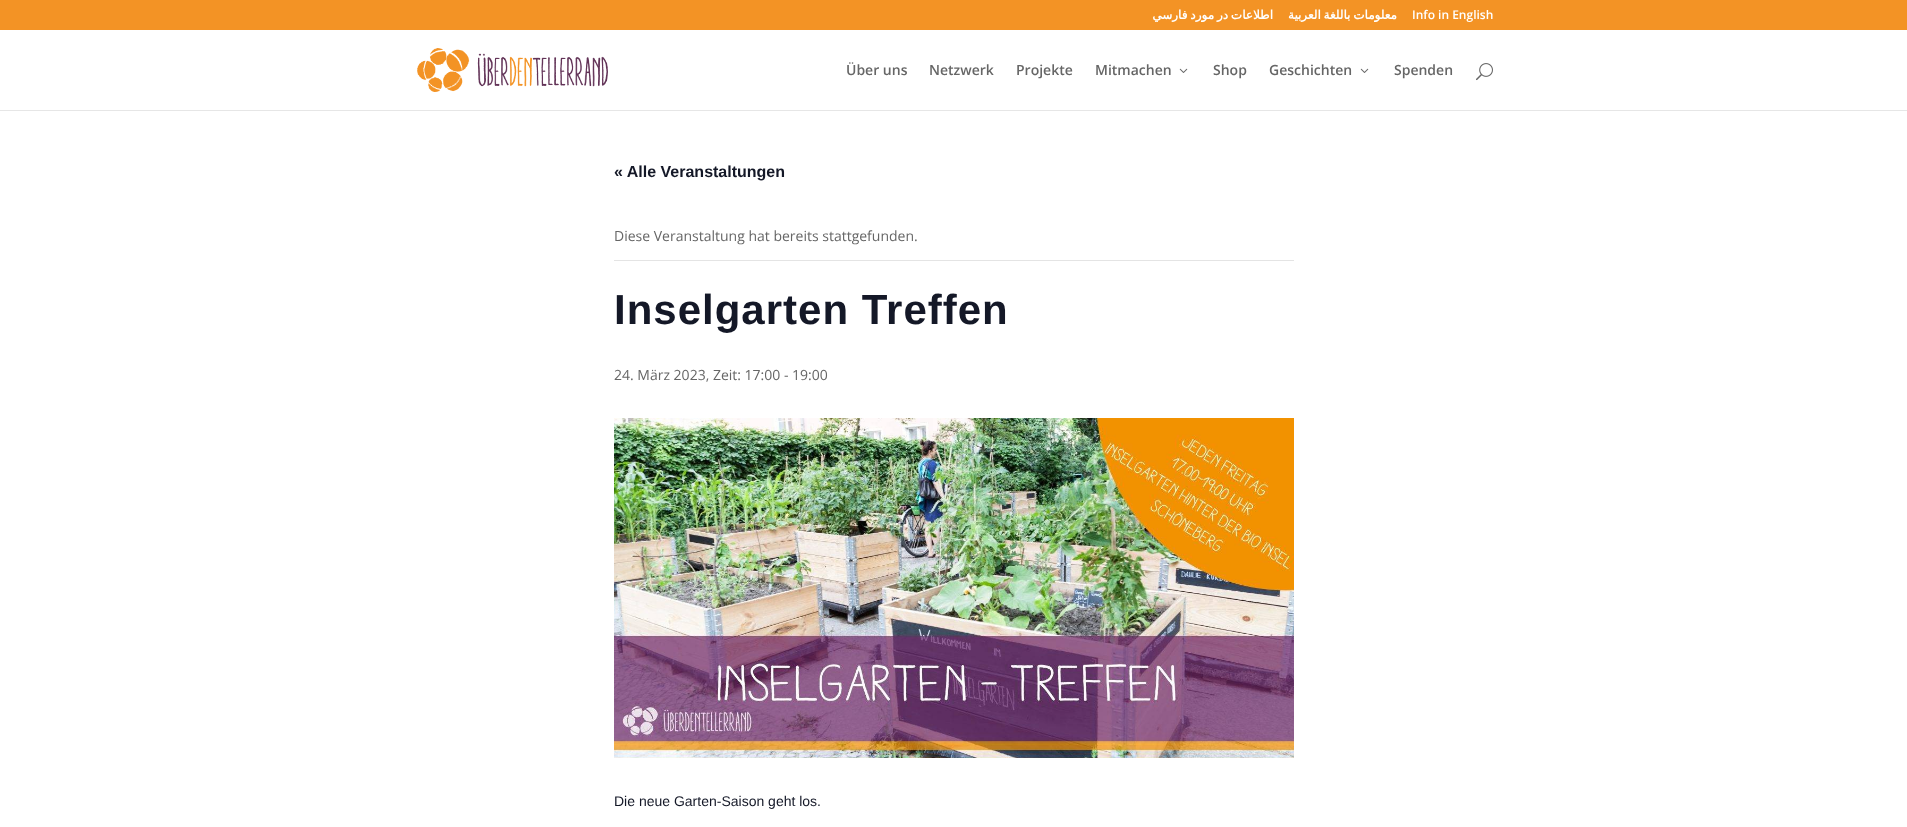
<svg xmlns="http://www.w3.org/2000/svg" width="1907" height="827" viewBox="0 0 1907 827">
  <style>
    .t1 { font: bold 12px DejaVu Sans; direction: rtl; fill: #fff; }
    .t2 { font: 600 12px Open Sans; fill: #fff; }
    .t3 { font: 600 14px Open Sans; fill: #666; }
    .t4 { font: bold 16px Liberation Sans; fill: #141827; }
    .t5 { font: 14px Open Sans; fill: #666; }
    .t6 { font: bold 42px Liberation Sans; letter-spacing: 1px; fill: #141827; }
    .t7 { font: 14px Liberation Sans; fill: #141827; }
  </style>
  <rect width="100%" height="100%" fill="#fff"/>
  <rect x="0" y="0" width="1907" height="30" fill="#f39325"/>
  <text x="1273" y="19" word-spacing="-1" class="t1">اطلاعات در مورد فارسي</text>
  <text x="1397" y="19" word-spacing="-1" class="t1">معلومات باللغة العربية</text>
  <text x="1412" y="19" class="t2">Info in English</text>
  <rect x="0" y="110" width="1907" height="1" fill="#e6e6e6"/>
  <image x="417" y="48" width="191" height="44" href="images/1.png"/>
  <text x="846" y="75" class="t3">Über uns</text>
  <text x="929" y="75" class="t3">Netzwerk</text>
  <text x="1016" y="75" class="t3">Projekte</text>
  <text x="1095" y="75" class="t3">Mitmachen</text>
  <image x="1179" y="68" width="9" height="5" href="images/2.png"/>
  <text x="1213" y="75" class="t3">Shop</text>
  <text x="1269" y="75" class="t3">Geschichten</text>
  <image x="1360" y="68" width="9" height="5" href="images/2.png"/>
  <text x="1394" y="75" class="t3">Spenden</text>
  <image x="1476" y="63" width="17" height="18" href="images/3.png"/>
  <text x="614" y="177" class="t4">« Alle Veranstaltungen</text>
  <rect x="614" y="260" width="680" height="1" fill="#e4e4e4"/>
  <text x="614" y="241" class="t5">Diese Veranstaltung hat bereits stattgefunden.</text>
  <text x="614" y="324" class="t6">Inselgarten Treffen</text>
  <text x="614" y="380" class="t5">24. März 2023, Zeit: 17:00 - 19:00</text>
  <image x="614" y="418" width="680" height="340" href="images/4.png"/>
  <text x="614" y="806" class="t7">Die neue Garten-Saison geht los.</text>
</svg>
